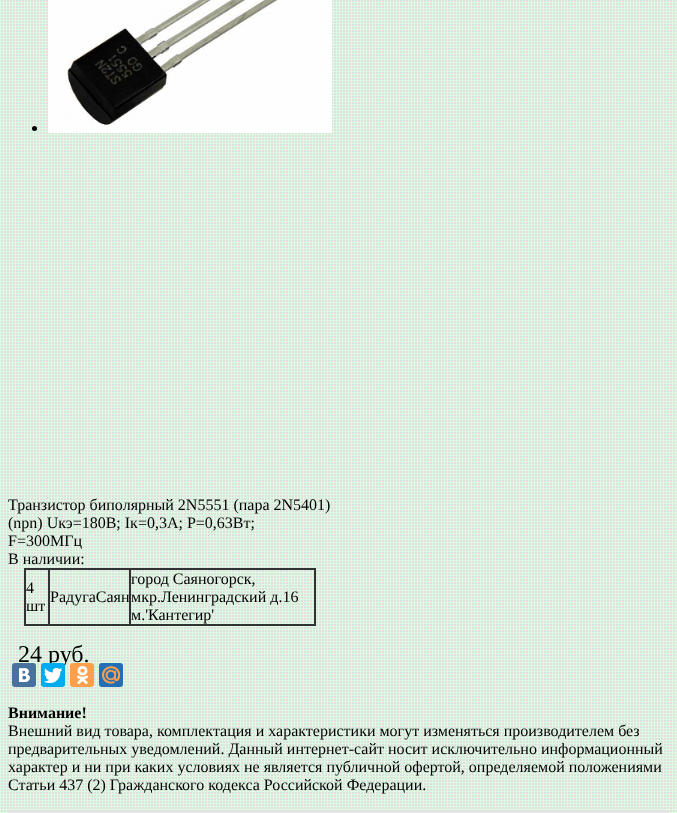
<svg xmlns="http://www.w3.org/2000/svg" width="677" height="813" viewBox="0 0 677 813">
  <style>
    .t1 { font: 16px Liberation Serif; fill: #000; }
    .t2 { font: 24px Liberation Serif; fill: #000; }
    .t3 { font: bold 16px Liberation Serif; fill: #000; }
  </style>
  <rect width="100%" height="100%" fill="#ddfbe0"/>
  <image x="1" y="0" width="676" height="812" href="images/1.png"/>
  <text x="8" y="510" class="t1">Транзистор биполярный 2N5551 (пара 2N5401)</text>
  <text x="8" y="528" class="t1">(npn) Uкэ=180В; Iк=0,3А; P=0,63Вт;</text>
  <text x="8" y="546" class="t1">F=300МГц</text>
  <text x="8" y="564" class="t1">В наличии:</text>
  <rect x="24.5" y="568.5" width="291" height="57" fill="none" stroke="#313233"/>
  <rect x="25.5" y="569.5" width="23" height="55" fill="none" stroke="#313233"/>
  <text x="26" y="593" class="t1">4</text>
  <text x="26" y="611" class="t1">шт</text>
  <rect x="49.5" y="569.5" width="80" height="55" fill="none" stroke="#313233"/>
  <text x="50" y="602" class="t1">РадугаСаян</text>
  <rect x="130.5" y="569.5" width="184" height="55" fill="none" stroke="#313233"/>
  <text x="131" y="584" class="t1">город Саяногорск,</text>
  <text x="131" y="602" class="t1">мкр.Ленинградский д.16</text>
  <text x="131" y="620" class="t1">м.'Кантегир'</text>
  <circle cx="34.5" cy="128.5" r="2.5" fill="#000"/>
  <image x="48" y="0" width="284" height="133" href="images/2.png"/>
  <text x="18" y="662" class="t2">24 руб.</text>
  <rect x="12" y="663" width="24" height="24" rx="3" fill="#48729e"/>
  <image x="19" y="668" width="11" height="14" href="images/3.png"/>
  <rect x="41" y="663" width="24" height="24" rx="3" fill="#00aced"/>
  <image x="44" y="668" width="18" height="15" href="images/4.png"/>
  <rect x="70" y="663" width="24" height="24" rx="3" fill="#ff9f4d"/>
  <image x="77" y="666" width="11" height="18" href="images/5.png"/>
  <rect x="99" y="663" width="24" height="24" rx="3" fill="#226eb7"/>
  <image x="102" y="666" width="18" height="18" href="images/6.png"/>
  <text x="8" y="718" class="t3">Внимание!</text>
  <text x="8" y="736" class="t1">Внешний вид товара, комплектация и характеристики могут изменяться производителем без</text>
  <text x="8" y="754" class="t1">предварительных уведомлений. Данный интернет-сайт носит исключительно информационный</text>
  <text x="8" y="772" class="t1">характер и ни при каких условиях не является публичной офертой, определяемой положениями</text>
  <text x="8" y="790" class="t1">Статьи 437 (2) Гражданского кодекса Российской Федерации.</text>
  <rect x="8" y="810" width="661" height="3" fill="#e3e3e3"/>
</svg>
